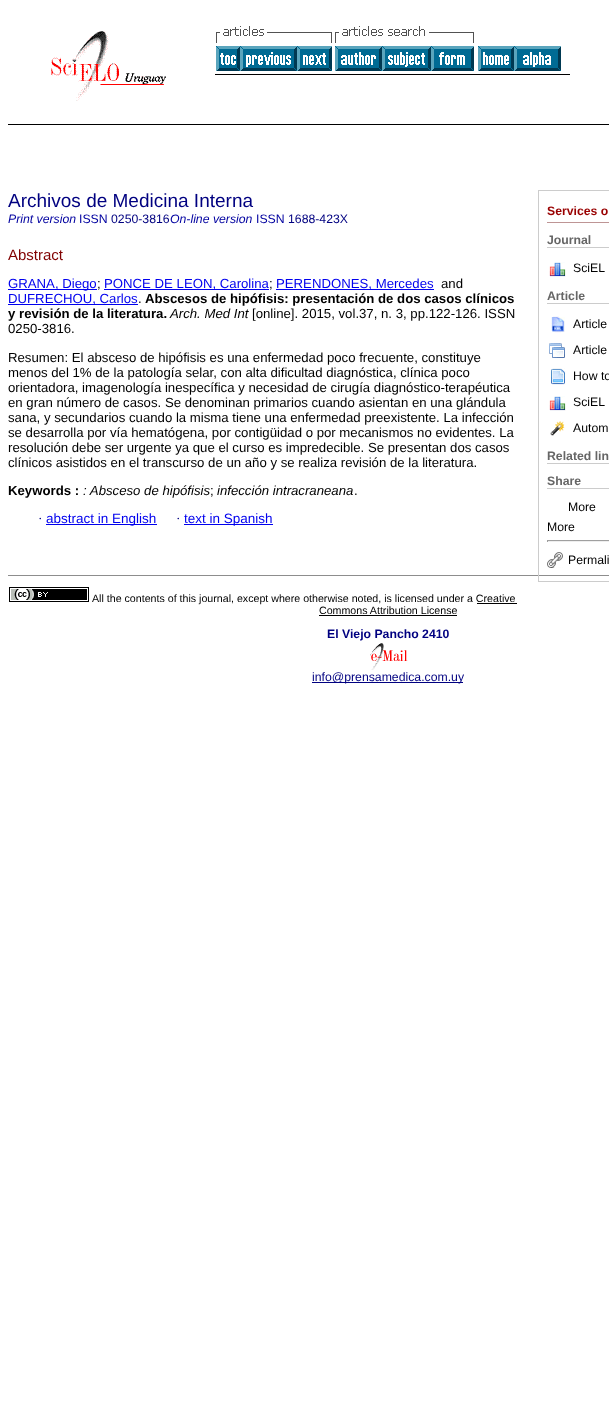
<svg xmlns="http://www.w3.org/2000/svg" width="609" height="1418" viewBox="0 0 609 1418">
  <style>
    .t1 { font: 19px Liberation Sans; fill: #000080; }
    .t2 { font: italic 12.25px Liberation Sans; fill: #0000a0; }
    .t3 { font: 12.25px Liberation Sans; fill: #0000a0; }
    .t4 { font: 12.25px Liberation Sans; fill: #000080; }
    .t5 { font: bold 12.25px Liberation Sans; fill: #900; }
    .t6 { font: bold 12.25px Liberation Sans; fill: #666; }
    .t7 { font: 12.25px Liberation Sans; fill: #000; }
    .t8 { font: 15px Liberation Sans; fill: #800000; }
    .t9 { font: 13.2px Liberation Sans; fill: #00e; }
    .t10 { font: 13.2px Liberation Sans; fill: #000; }
    .t11 { font: bold 13.2px Liberation Sans; fill: #000; }
    .t12 { font: italic 13.2px Liberation Sans; fill: #000; }
    .t13 { font: 13.5px Liberation Serif; fill: #000080; }
    .t14 { font: 13.5px Liberation Sans; fill: #00e; }
    .t15 { font: 10.65px Liberation Sans; fill: #000; }
    .t16 { font: bold 12.25px Liberation Sans; fill: #000080; }
  </style>
  <rect width="100%" height="100%" fill="#fff"/>
  <rect x="8" y="124" width="601" height="1" fill="#000"/>
  <image x="51" y="31" width="115" height="70" href="images/1.png"/>
  <rect x="215" y="74" width="355" height="1" fill="#000"/>
  <image x="216" y="26" width="116" height="17" href="images/2.png"/>
  <image x="335" y="26" width="139" height="17" href="images/3.png"/>
  <image x="216" y="46" width="24" height="25" href="images/4.png"/>
  <image x="240" y="46" width="57" height="25" href="images/5.png"/>
  <image x="297" y="46" width="35" height="25" href="images/6.png"/>
  <image x="335" y="46" width="47" height="25" href="images/7.png"/>
  <image x="382" y="46" width="49" height="25" href="images/8.png"/>
  <image x="431" y="46" width="43" height="25" href="images/9.png"/>
  <image x="478" y="46" width="36" height="25" href="images/10.png"/>
  <image x="514" y="46" width="47" height="25" href="images/11.png"/>
  <rect x="8" y="575" width="601" height="1" fill="#8d8d8d"/>
  <text x="8" y="207" class="t1">Archivos de Medicina Interna</text>
  <text x="8" y="223" class="t2">Print version</text>
  <text x="79" y="223" class="t3">ISSN</text>
  <text x="111" y="223" class="t4">0250-3816</text>
  <text x="170" y="223" class="t2">On-line version</text>
  <text x="256" y="223" class="t3">ISSN</text>
  <text x="288" y="223" class="t4">1688-423X</text>
  <rect x="538.5" y="190.5" width="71" height="391" fill="none" stroke="#ccc"/>
  <rect x="547" y="222" width="62" height="1" fill="#be9595"/>
  <text x="547" y="215" class="t5">Services o</text>
  <rect x="547" y="247" width="62" height="1" fill="#ccc"/>
  <text x="547" y="244" class="t6">Journal</text>
  <image x="549" y="262" width="17" height="15" href="images/12.png"/>
  <text x="573" y="272" class="t7">SciEL</text>
  <rect x="547" y="303" width="62" height="1" fill="#ccc"/>
  <text x="547" y="300" class="t6">Article</text>
  <image x="551" y="316" width="14" height="17" href="images/13.png"/>
  <text x="573" y="328" class="t7">Article</text>
  <image x="549" y="343" width="16" height="15" href="images/14.png"/>
  <text x="573" y="354" class="t7">Article</text>
  <image x="551" y="368" width="15" height="17" href="images/15.png"/>
  <text x="573" y="380" class="t7">How to</text>
  <image x="549" y="396" width="17" height="15" href="images/12.png"/>
  <text x="573" y="406" class="t7">SciEL</text>
  <image x="550" y="421" width="15" height="15" href="images/16.png"/>
  <text x="573" y="432" class="t7">Autom</text>
  <rect x="547" y="463" width="62" height="1" fill="#ccc"/>
  <text x="547" y="460" class="t6">Related lin</text>
  <rect x="547" y="488" width="62" height="1" fill="#ccc"/>
  <text x="547" y="485" class="t6">Share</text>
  <text x="568" y="511" class="t7">More</text>
  <text x="547" y="531" class="t7">More</text>
  <rect x="547" y="540" width="62" height="1" fill="#9f9f9f"/>
  <rect x="547" y="541" width="62" height="1" fill="#eee"/>
  <rect x="547" y="540" width="1" height="2" fill="#9f9f9f"/>
  <image x="547" y="552" width="16" height="16" href="images/17.png"/>
  <text x="568" y="564" class="t7">Permali</text>
  <text x="8" y="260" class="t8">Abstract</text>
  <rect x="8" y="289" width="89" height="1" fill="#00e"/>
  <text x="8" y="288" class="t9">GRANA, Diego</text>
  <text x="97" y="288" class="t10">;</text>
  <rect x="104" y="289" width="165" height="1" fill="#00e"/>
  <text x="104" y="288" class="t9">PONCE DE LEON, Carolina</text>
  <text x="269" y="288" class="t10">;</text>
  <rect x="276" y="289" width="158" height="1" fill="#00e"/>
  <text x="276" y="288" class="t9">PERENDONES, Mercedes</text>
  <text x="441" y="288" class="t10">and</text>
  <rect x="8" y="304" width="130" height="1" fill="#00e"/>
  <text x="8" y="303" class="t9">DUFRECHOU, Carlos</text>
  <text x="138" y="303" class="t10">.</text>
  <text x="145" y="303" class="t11">Abscesos de hipófisis: presentación de dos casos clínicos</text>
  <text x="8" y="318" class="t11">y revisión de la literatura.</text>
  <text x="170" y="318" class="t12">Arch. Med Int</text>
  <text x="252" y="318" class="t10">[online]. 2015, vol.37, n. 3, pp.122-126. ISSN</text>
  <text x="8" y="333" class="t10">0250-3816.</text>
  <text x="8" y="362" class="t10">Resumen: El absceso de hipófisis es una enfermedad poco frecuente, constituye</text>
  <text x="8" y="377" class="t10">menos del 1% de la patología selar, con alta dificultad diagnóstica, clínica poco</text>
  <text x="8" y="392" class="t10">orientadora, imagenología inespecífica y necesidad de cirugía diagnóstico-terapéutica</text>
  <text x="8" y="407" class="t10">en gran número de casos. Se denominan primarios cuando asientan en una glándula</text>
  <text x="8" y="422" class="t10">sana, y secundarios cuando la misma tiene una enfermedad preexistente. La infección</text>
  <text x="8" y="437" class="t10">se desarrolla por vía hematógena, por contigüidad o por mecanismos no evidentes. La</text>
  <text x="8" y="452" class="t10">resolución debe ser urgente ya que el curso es impredecible. Se presentan dos casos</text>
  <text x="8" y="467" class="t10">clínicos asistidos en el transcurso de un año y se realiza revisión de la literatura.</text>
  <text x="8" y="495" class="t11">Keywords :</text>
  <text x="83" y="495" class="t12">: Absceso de hipófisis</text>
  <text x="210" y="495" class="t10">;</text>
  <text x="217" y="495" class="t12">infección intracraneana</text>
  <text x="354" y="495" class="t10">.</text>
  <text x="38" y="523" class="t13">·</text>
  <rect x="46" y="524" width="111" height="1" fill="#00e"/>
  <text x="46" y="523" class="t14">abstract in English</text>
  <text x="176" y="523" class="t13">·</text>
  <rect x="184" y="524" width="89" height="1" fill="#00e"/>
  <text x="184" y="523" class="t14">text in Spanish</text>
  <image x="9" y="587" width="80" height="15" href="images/18.png"/>
  <text x="92" y="602" class="t15">All the contents of this journal, except where otherwise noted, is licensed under a Creative</text>
  <text x="319" y="614" class="t15">Commons Attribution License</text>
  <rect x="477" y="603" width="40" height="1" fill="#000"/>
  <rect x="319" y="615" width="138" height="1" fill="#000"/>
  <text x="327" y="638" class="t16">El Viejo Pancho 2410</text>
  <image x="370" y="643" width="38" height="27" href="images/19.png"/>
  <rect x="312" y="682" width="151" height="1" fill="#000080"/>
  <text x="312" y="681" class="t4">info@prensamedica.com.uy</text>
</svg>
